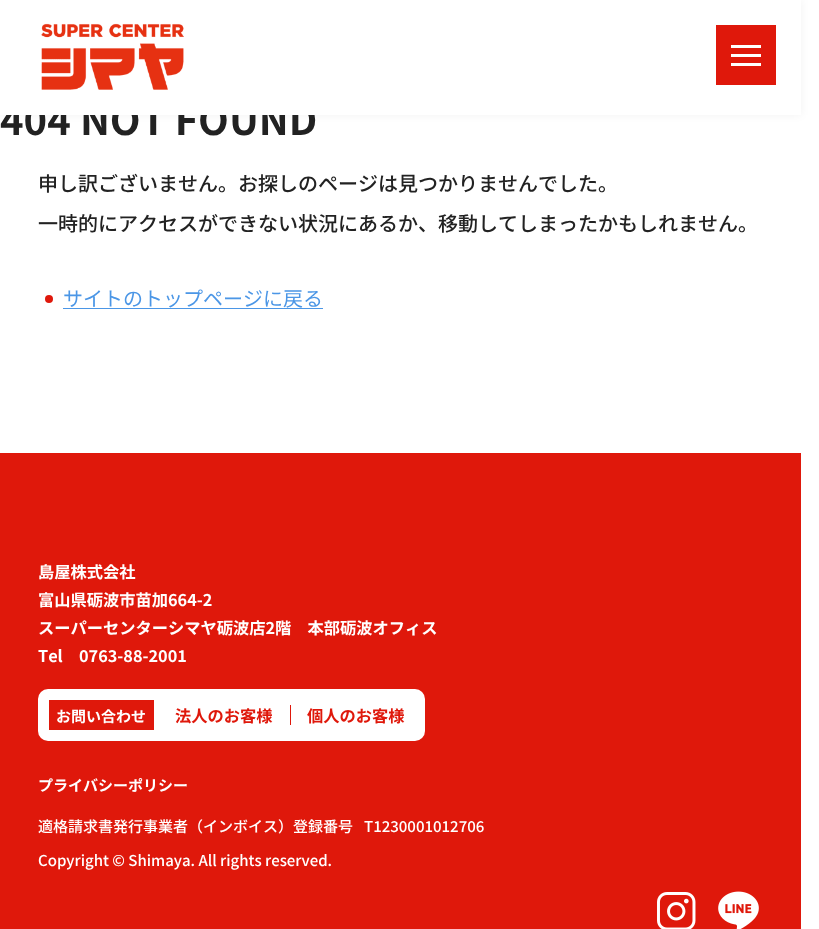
<svg xmlns="http://www.w3.org/2000/svg" width="819" height="929" viewBox="0 0 819 929">
  <style>*{font-kerning:none!important;font-variant-ligatures:none!important}</style>
  <style>
    .t1 { font: bold 40px Noto Sans JP; fill: #222; }
    .t2 { font: 500 20px Noto Sans JP; fill: #222; }
    .t3 { font: 20px Noto Sans JP; fill: #4b96e6; }
    .t4 { font: bold 16.25px Noto Sans JP; fill: #fff; }
    .t5 { font: bold 15px Noto Sans JP; fill: #fff; }
    .t6 { font: bold 16.25px Noto Sans JP; fill: #df180b; }
    .t7 { font: 500 15px Noto Sans JP; fill: #fff; }
  </style>
  <rect width="100%" height="100%" fill="#fff"/>
  <rect x="0" y="0" width="801" height="115" fill="#0000000d" filter="blur(4px)"/>
  <text x="0" y="135" class="t1">404 NOT FOUND</text>
  <rect x="0" y="0" width="801" height="115" fill="#fff"/>
  <image x="41" y="23" width="143" height="67" href="images/1.png"/>
  <rect x="716" y="25" width="60" height="60" fill="#df180b"/>
  <rect x="731" y="45" width="30" height="3" fill="#fff"/>
  <rect x="731" y="54" width="30" height="3" fill="#fff"/>
  <rect x="731" y="63" width="30" height="3" fill="#fff"/>
  <text x="38" y="191" class="t2">申し訳ございません。お探しのページは見つかりませんでした。</text>
  <text x="38" y="231" class="t2">一時的にアクセスができない状況にあるか、移動してしまったかもしれません。</text>
  <circle cx="49" cy="299" r="4" fill="#df180b"/>
  <text x="63" y="306" class="t3">サイトのトップページに戻る</text>
  <rect x="63" y="308" width="260" height="1" fill="#4b96e6"/>
  <rect x="0" y="453" width="801" height="476" fill="#df180b"/>
  <text x="38" y="578" class="t4">島屋株式会社</text>
  <text x="38" y="606" class="t4">富山県砺波市苗加664-2</text>
  <text x="38" y="634" class="t4">スーパーセンターシマヤ砺波店2階　本部砺波オフィス</text>
  <text x="38" y="662" class="t4">Tel　0763-88-2001</text>
  <rect x="38" y="689" width="387" height="52" rx="10" fill="#fff"/>
  <rect x="49" y="700" width="105" height="30" fill="#df180b"/>
  <text x="56" y="722" class="t5">お問い合わせ</text>
  <text x="175" y="722" class="t6">法人のお客様</text>
  <rect x="290" y="705" width="1" height="20" fill="#df180b"/>
  <text x="307" y="722" class="t6">個人のお客様</text>
  <text x="38" y="791" class="t5">プライバシーポリシー</text>
  <text x="38" y="832" class="t7">適格請求書発行事業者（インボイス）登録番号</text>
  <text x="364" y="832" class="t7">T1230001012706</text>
  <text x="38" y="866" class="t7">Copyright © Shimaya. All rights reserved.</text>
  <image x="657" y="892" width="39" height="37" href="images/2.png"/>
  <image x="718" y="891" width="41" height="38" href="images/3.png"/>
</svg>
